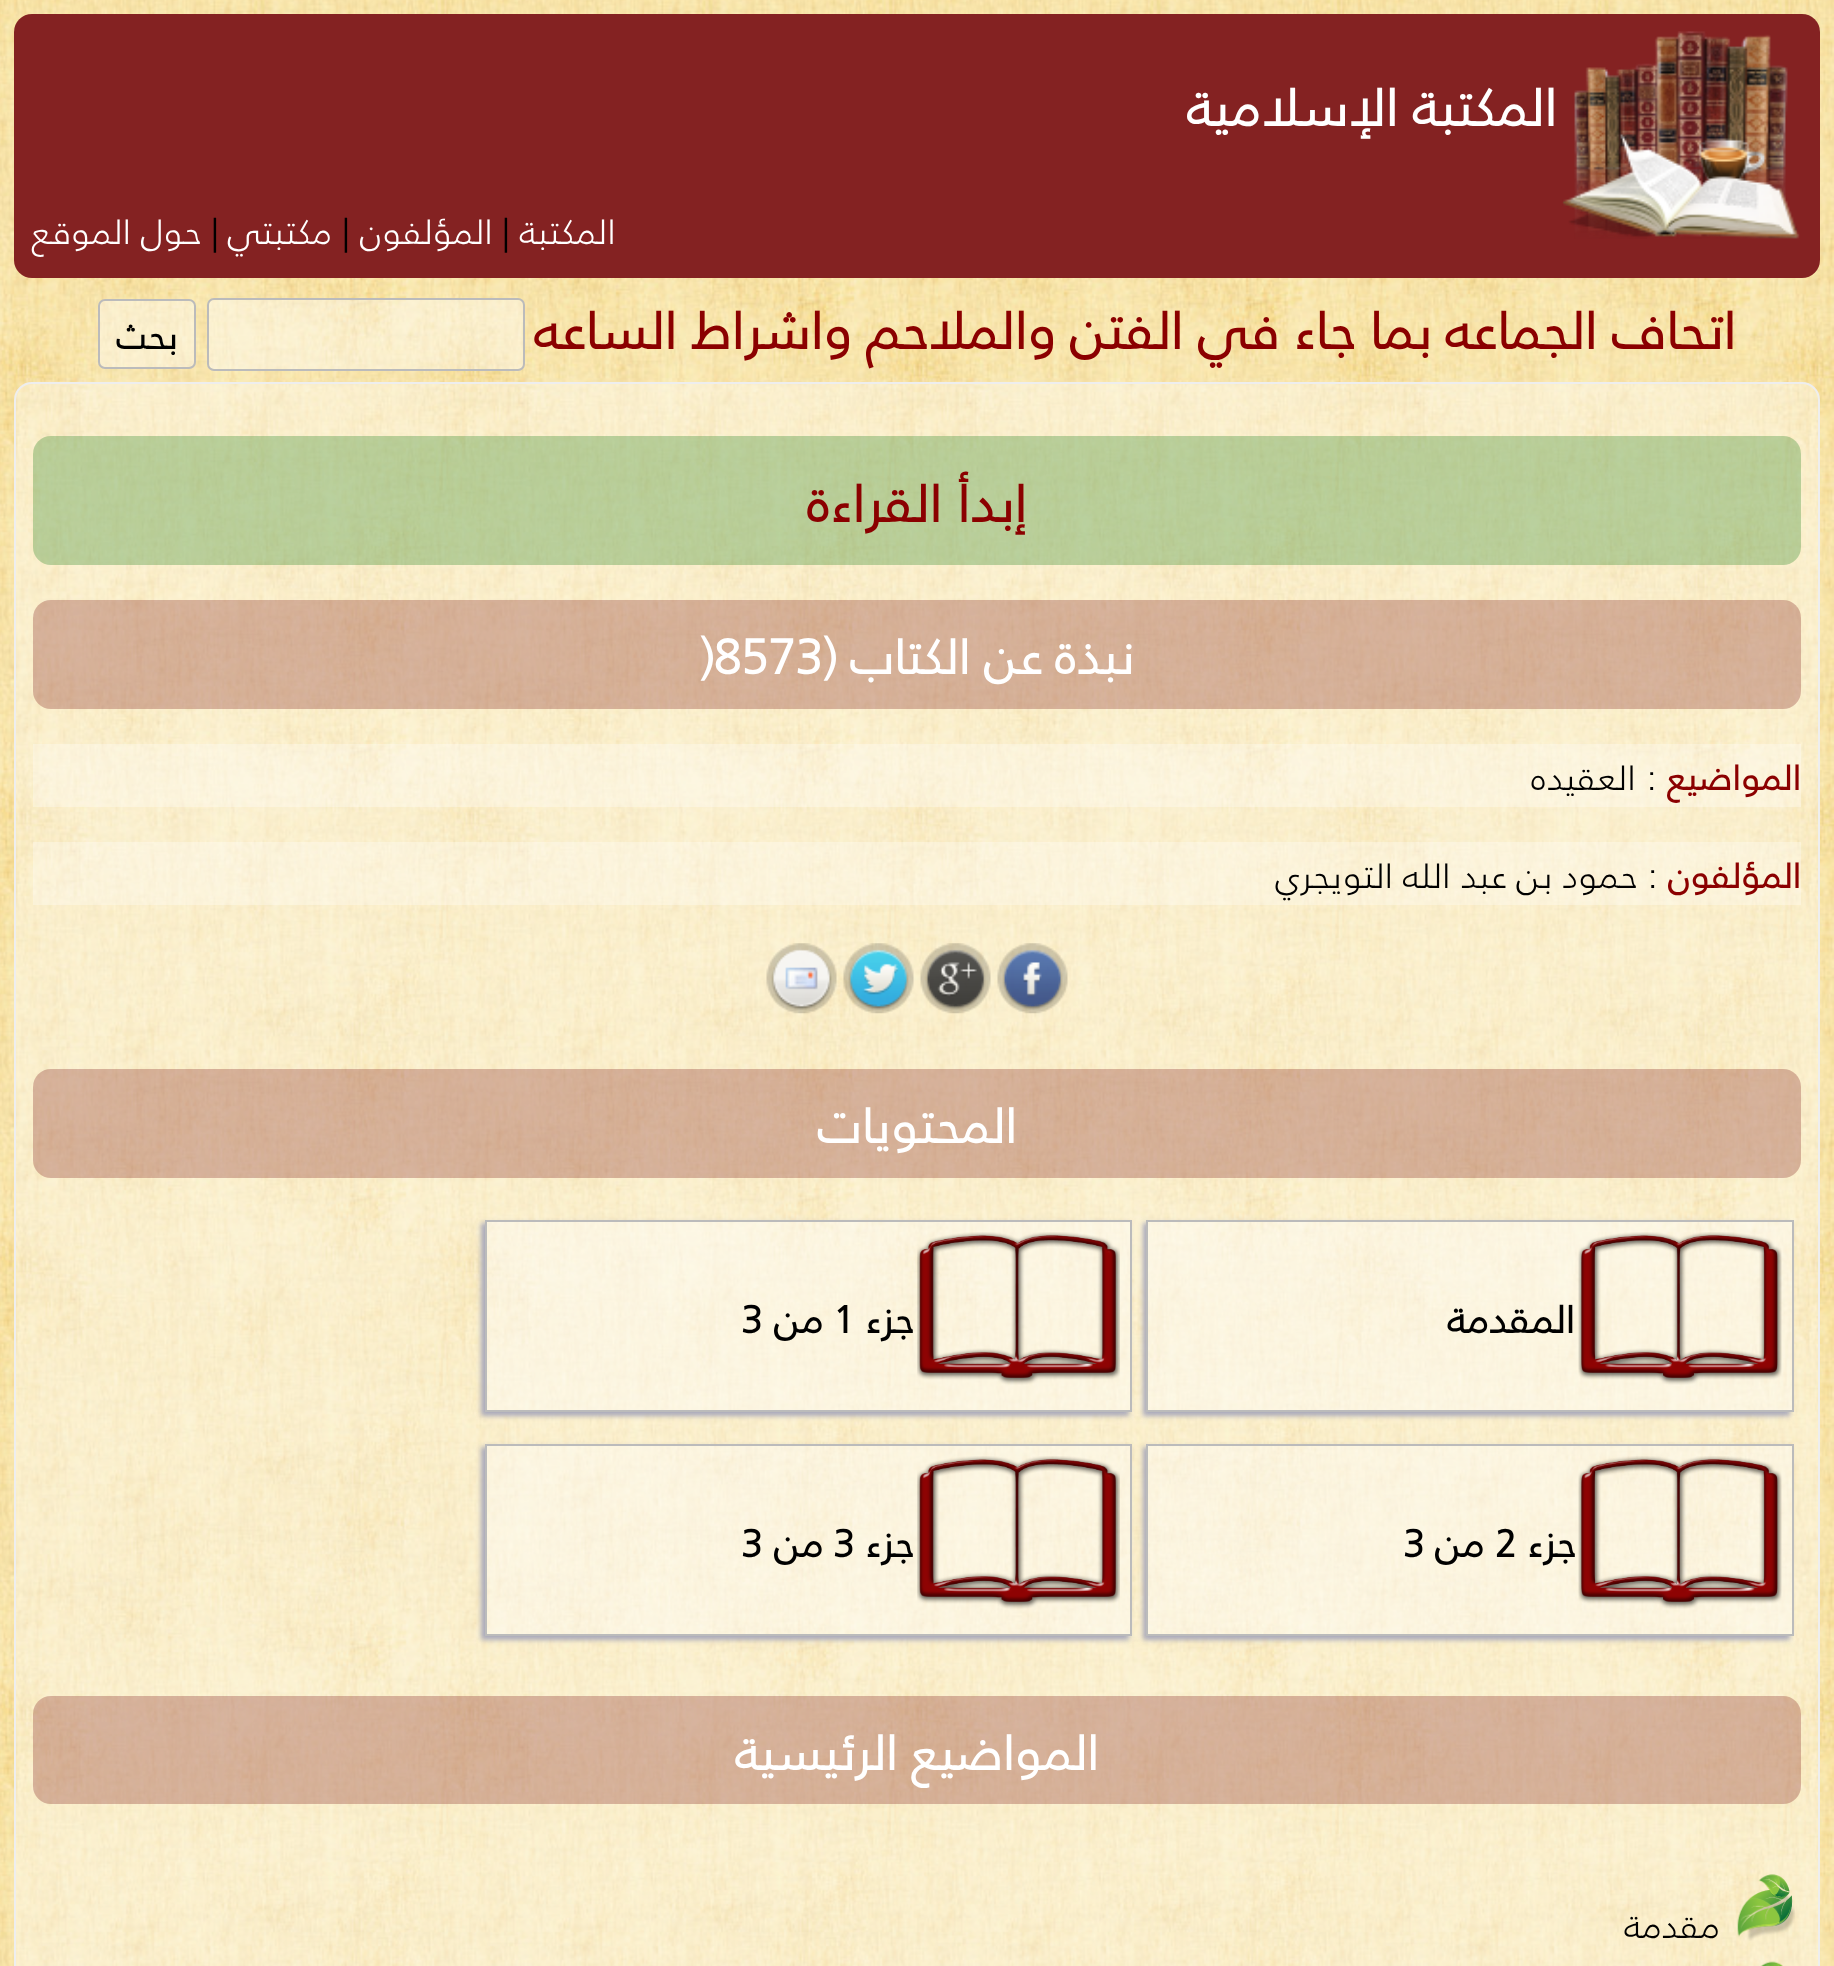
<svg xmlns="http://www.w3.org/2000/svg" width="1834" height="1966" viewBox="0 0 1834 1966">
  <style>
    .t1 { font: bold 52.5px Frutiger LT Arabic; direction: rtl; fill: #fff; }
    .t2 { font: 300 35px Frutiger LT Arabic; direction: rtl; fill: #fff; }
    .t3 { font: 300 35px Frutiger LT Arabic; fill: #000; }
    .t4 { font: bold 52.5px Frutiger LT Arabic; direction: rtl; fill: #8b0000; }
    .t5 { font: bold 35px Frutiger LT Arabic; direction: rtl; fill: #000; }
    .t6 { font: bold 49px Frutiger LT Arabic; direction: rtl; fill: #fff; }
    .t7 { font: bold 49px Frutiger LT Arabic; fill: #fff; }
    .t8 { font: bold 35px Frutiger LT Arabic; direction: rtl; fill: #8b0000; }
    .t9 { font: 300 35px Frutiger LT Arabic; direction: rtl; fill: #000; }
    .t10 { font: bold 38.5px Frutiger LT Arabic; direction: rtl; fill: #000; }
    .t11 { font: bold 38.5px Frutiger LT Arabic; fill: #000; }
  </style>
  <defs>
    <clipPath id="clip1"><path d="M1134 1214H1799V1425H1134ZM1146 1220H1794V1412H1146Z" clip-rule="evenodd"/></clipPath>
    <clipPath id="clip2"><path d="M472 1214H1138V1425H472ZM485 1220H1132V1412H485Z" clip-rule="evenodd"/></clipPath>
    <clipPath id="clip3"><path d="M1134 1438H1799V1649H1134ZM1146 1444H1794V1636H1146Z" clip-rule="evenodd"/></clipPath>
    <clipPath id="clip4"><path d="M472 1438H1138V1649H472ZM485 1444H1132V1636H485Z" clip-rule="evenodd"/></clipPath>
  </defs>
  <rect width="100%" height="100%" fill="#fff"/>
  <image x="0" y="0" width="1834" height="1966" href="images/1.png"/>
  <rect x="14" y="14" width="1806" height="264" rx="18" fill="#842222"/>
  <image x="1562" y="31" width="238" height="208" href="images/2.png"/>
  <text x="1557" y="126" class="t1">المكتبة الإسلامية</text>
  <text x="616" y="244" class="t2">المكتبة</text>
  <text x="502" y="244" class="t3">|</text>
  <text x="493" y="244" class="t2">المؤلفون</text>
  <text x="342" y="244" class="t3">|</text>
  <text x="332" y="244" class="t2">مكتبتي</text>
  <text x="211" y="244" class="t3">|</text>
  <text x="201" y="244" class="t2">حول الموقع</text>
  <text x="1736" y="349" class="t4">اتحاف الجماعه بما جاء في الفتن والملاحم واشراط الساعه</text>
  <rect x="208" y="299" width="316" height="71" rx="6" fill="#ffffff66" stroke="#bbb" stroke-width="2"/>
  <rect x="99" y="300" width="96" height="68" rx="6" fill="#ffffff66" stroke="#bbb" stroke-width="2"/>
  <text x="177" y="349" class="t5">بحث</text>
  <rect x="15" y="383" width="1804" height="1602" rx="17" fill="#ffffff66" stroke="#eee" stroke-width="2"/>
  <rect x="33" y="436" width="1768" height="129" rx="18" fill="#2080204d"/>
  <text x="1027" y="522" class="t4">إبدأ القراءة</text>
  <rect x="33" y="600" width="1768" height="109" rx="18" fill="#8020204d"/>
  <text x="1134" y="674" class="t6">نبذة عن الكتاب (</text>
  <text x="700" y="674" class="t7">)8573</text>
  <rect x="33" y="744" width="1768" height="63" fill="#ffffff4d"/>
  <text x="1801" y="790" class="t8">المواضيع</text>
  <text x="1646" y="790" class="t3">:</text>
  <text x="1636" y="790" class="t9">العقيده</text>
  <rect x="33" y="842" width="1768" height="63" fill="#ffffff4d"/>
  <text x="1801" y="888" class="t8">المؤلفون</text>
  <text x="1647" y="888" class="t3">:</text>
  <text x="1637" y="888" class="t9">حمود بن عبد الله التويجري</text>
  <image x="997" y="943" width="71" height="71" href="images/3.png"/>
  <image x="920" y="943" width="71" height="71" href="images/4.png"/>
  <image x="843" y="943" width="71" height="71" href="images/5.png"/>
  <image x="766" y="943" width="71" height="71" href="images/6.png"/>
  <rect x="33" y="1069" width="1768" height="109" rx="18" fill="#8020204d"/>
  <text x="1017" y="1143" class="t6">المحتويات</text>
  <g clip-path="url(#clip1)">
    <rect x="1143" y="1223" width="647" height="193" fill="#aab" filter="blur(2.5px)"/>
  </g>
  <rect x="1147" y="1221" width="646" height="190" fill="#ffffff66" stroke="#bbb" stroke-width="2"/>
  <image x="1578" y="1232" width="204" height="153" href="images/7.png"/>
  <text x="1575" y="1333" class="t10">المقدمة</text>
  <g clip-path="url(#clip2)">
    <rect x="481" y="1223" width="648" height="193" fill="#aab" filter="blur(2.5px)"/>
  </g>
  <rect x="486" y="1221" width="645" height="190" fill="#ffffff66" stroke="#bbb" stroke-width="2"/>
  <image x="917" y="1232" width="203" height="153" href="images/8.png"/>
  <text x="913" y="1333" class="t10">جزء</text>
  <text x="833" y="1333" class="t11">1</text>
  <text x="823" y="1333" class="t10">من</text>
  <text x="741" y="1333" class="t11">3</text>
  <g clip-path="url(#clip3)">
    <rect x="1143" y="1447" width="647" height="193" fill="#aab" filter="blur(2.5px)"/>
  </g>
  <rect x="1147" y="1445" width="646" height="190" fill="#ffffff66" stroke="#bbb" stroke-width="2"/>
  <image x="1578" y="1456" width="204" height="153" href="images/9.png"/>
  <text x="1575" y="1557" class="t10">جزء</text>
  <text x="1495" y="1557" class="t11">2</text>
  <text x="1484" y="1557" class="t10">من</text>
  <text x="1403" y="1557" class="t11">3</text>
  <g clip-path="url(#clip4)">
    <rect x="481" y="1447" width="648" height="193" fill="#aab" filter="blur(2.5px)"/>
  </g>
  <rect x="486" y="1445" width="645" height="190" fill="#ffffff66" stroke="#bbb" stroke-width="2"/>
  <image x="917" y="1456" width="203" height="153" href="images/10.png"/>
  <text x="913" y="1557" class="t10">جزء</text>
  <text x="833" y="1557" class="t11">3</text>
  <text x="823" y="1557" class="t10">من</text>
  <text x="741" y="1557" class="t11">3</text>
  <rect x="33" y="1696" width="1768" height="108" rx="18" fill="#8020204d"/>
  <text x="1099" y="1770" class="t6">المواضيع الرئيسية</text>
  <image x="1737" y="1874" width="58" height="67" href="images/11.png"/>
  <text x="1720" y="1938" class="t9">مقدمة</text>
  <image x="1760" y="1961" width="23" height="5" href="images/12.png"/>
</svg>
